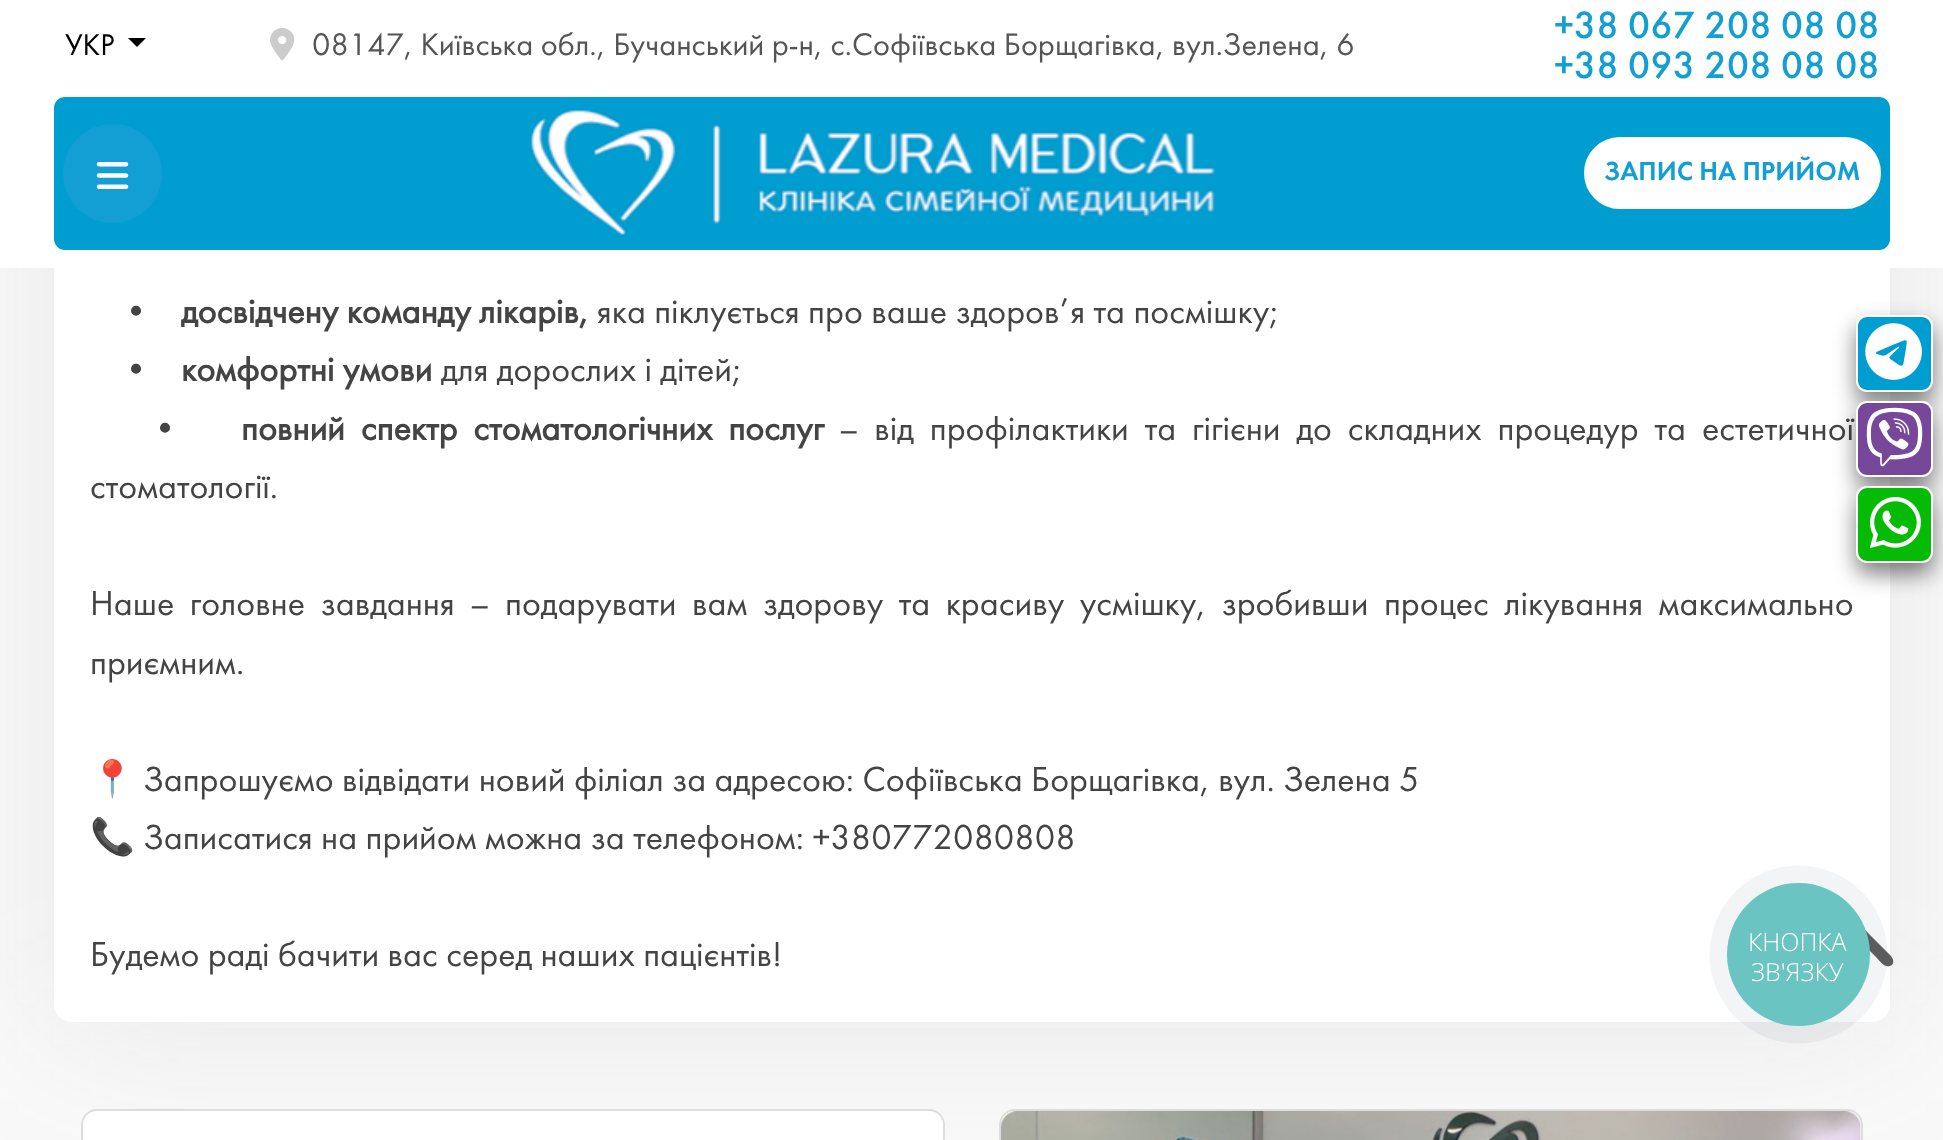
<svg xmlns="http://www.w3.org/2000/svg" width="1943" height="1140" viewBox="0 0 1943 1140">
  <style>
    .t1 { font: 31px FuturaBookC; fill: #000; }
    .t2 { font: 32.4px FuturaBookC; fill: #555; }
    .t3 { font: 500 39.5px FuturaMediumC; fill: #139fd4; }
    .t4 { font: 600 27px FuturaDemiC; fill: #139fd4; }
    .t5 { font: 36px FuturaBookC; fill: #444; }
    .t6 { font: bold 36px FuturaBookC; fill: #444; }
    .t7 { font: 36px Noto Color Emoji; fill: #444; }
    .t8 { font: 300 25px Open Sans; fill: #fff; }
  </style>
  <rect width="100%" height="100%" fill="#f9f9f9"/>
  <rect x="54" y="-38" width="1836" height="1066" rx="18" fill="#6268701c" filter="blur(77.5px)"/>
  <rect x="54" y="-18" width="1836" height="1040" rx="18" fill="#fff"/>
  <rect x="0" y="0" width="1943" height="268" fill="#fff"/>
  <text x="65" y="55" class="t1">УКР</text>
  <path d="M128 38H146L137 47Z" fill="#000"/>
  <image x="270" y="28" width="25" height="33" href="images/1.png"/>
  <text x="312" y="55" class="t2">08147, Київська обл., Бучанський р-н, с.Софіївська Борщагівка, вул.Зелена, 6</text>
  <text x="1554" y="38" class="t3">+38 067 208 08 08</text>
  <text x="1554" y="78" class="t3">+38 093 208 08 08</text>
  <rect x="54" y="97" width="1836" height="153" rx="11" fill="#009ed0"/>
  <circle cx="112.5" cy="173.5" r="49.5" fill="#139fd4"/>
  <image x="96" y="162" width="33" height="27" href="images/2.png"/>
  <image x="530" y="109" width="685" height="128" href="images/3.png"/>
  <rect x="1585" y="138" width="295" height="70" rx="35" fill="#fff" stroke="#fff" stroke-width="2"/>
  <text x="1604" y="180" class="t4">ЗАПИС НА ПРИЙОМ</text>
  <text x="124" y="323" class="t5">•</text>
  <text x="181" y="323" class="t6">досвідчену команду лікарів,</text>
  <text x="597" y="323" class="t5">яка піклується про ваше здоров’я та посмішку;</text>
  <text x="124" y="381" class="t5">•</text>
  <text x="181" y="381" class="t6">комфортні умови</text>
  <text x="441" y="381" class="t5">для дорослих і дітей;</text>
  <text x="153" y="440" class="t5">•</text>
  <text x="241" y="440" word-spacing="7.5" class="t6">повний спектр стоматологічних послуг</text>
  <text x="839" y="440" word-spacing="7.5" class="t5">– від профілактики та гігієни до складних процедур та естетичної</text>
  <text x="90" y="498" class="t5">стоматології.</text>
  <text x="90" y="615" word-spacing="7.1" class="t5">Наше головне завдання – подарувати вам здорову та красиву усмішку, зробивши процес лікування максимально</text>
  <text x="90" y="674" class="t5">приємним.</text>
  <text x="90" y="791" class="t7">📍</text>
  <text x="143" y="791" class="t5">Запрошуємо відвідати новий філіал за адресою: Софіївська Борщагівка, вул. Зелена 5</text>
  <text x="90" y="849" class="t7">📞</text>
  <text x="143" y="849" class="t5">Записатися на прийом можна за телефоном: +380772080808</text>
  <text x="90" y="966" class="t5">Будемо раді бачити вас серед наших пацієнтів!</text>
  <rect x="82" y="1110" width="862" height="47" rx="15" fill="#fff" stroke="#ddd" stroke-width="2"/>
  <rect x="1000" y="1110" width="862" height="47" rx="15" fill="#fff" stroke="#ddd" stroke-width="2"/>
  <image x="1001" y="1111" width="860" height="29" href="images/4.png"/>
  <rect x="1856" y="326" width="77" height="77" rx="11" fill="#00000080" filter="blur(11px)"/>
  <rect x="1857" y="316" width="75" height="75" rx="10" fill="#009ed0" stroke="#fff" stroke-width="2"/>
  <image x="1865" y="323" width="57" height="57" href="images/5.png"/>
  <rect x="1856" y="412" width="77" height="76" rx="11" fill="#00000080" filter="blur(11px)"/>
  <rect x="1857" y="402" width="75" height="74" rx="10" fill="#77489a" stroke="#fff" stroke-width="2"/>
  <image x="1866" y="407" width="57" height="60" href="images/6.png"/>
  <rect x="1856" y="497" width="77" height="77" rx="11" fill="#00000080" filter="blur(11px)"/>
  <rect x="1857" y="487" width="75" height="75" rx="10" fill="#05bb05" stroke="#fff" stroke-width="2"/>
  <image x="1869" y="497" width="52" height="52" href="images/7.png"/>
  <path d="M1856 929C1861 924 1865 930 1868 933L1887 952C1890 955 1896 960 1892 965C1890 966 1888 967 1887 966C1883 966 1878 959 1876 957L1860 941L1844 957C1840 960 1835 969 1829 966C1819 961 1835 950 1837 947Z" fill="#333333c9"/>
  <circle cx="1798.5" cy="954.5" r="89" fill="#2a405d0f"/>
  <circle cx="1798.5" cy="954.5" r="71.5" fill="#6ac4c1"/>
  <text x="1748" y="951" class="t8">КНОПКА</text>
  <text x="1751" y="981" class="t8">ЗВ'ЯЗКУ</text>
</svg>
